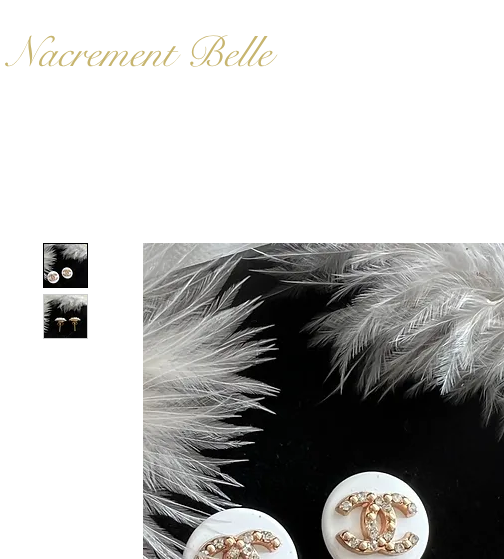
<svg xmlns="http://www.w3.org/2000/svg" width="504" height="559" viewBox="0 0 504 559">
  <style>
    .t1 { font: 43px 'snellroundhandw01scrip'; fill: #c7b56f; }
  </style>
  <rect width="100%" height="100%" fill="#fff"/>
  <text x="8" y="66" class="t1">Nacrement Belle</text>
  <rect x="43.5" y="243.5" width="44" height="44" fill="none" stroke="#000"/>
  <image x="44" y="244" width="43" height="43" href="images/1.png"/>
  <rect x="43" y="294" width="45" height="45" fill="#ccc"/>
  <image x="44" y="295" width="43" height="43" href="images/2.png"/>
  <image x="143" y="243" width="361" height="316" href="images/3.png"/>
</svg>
